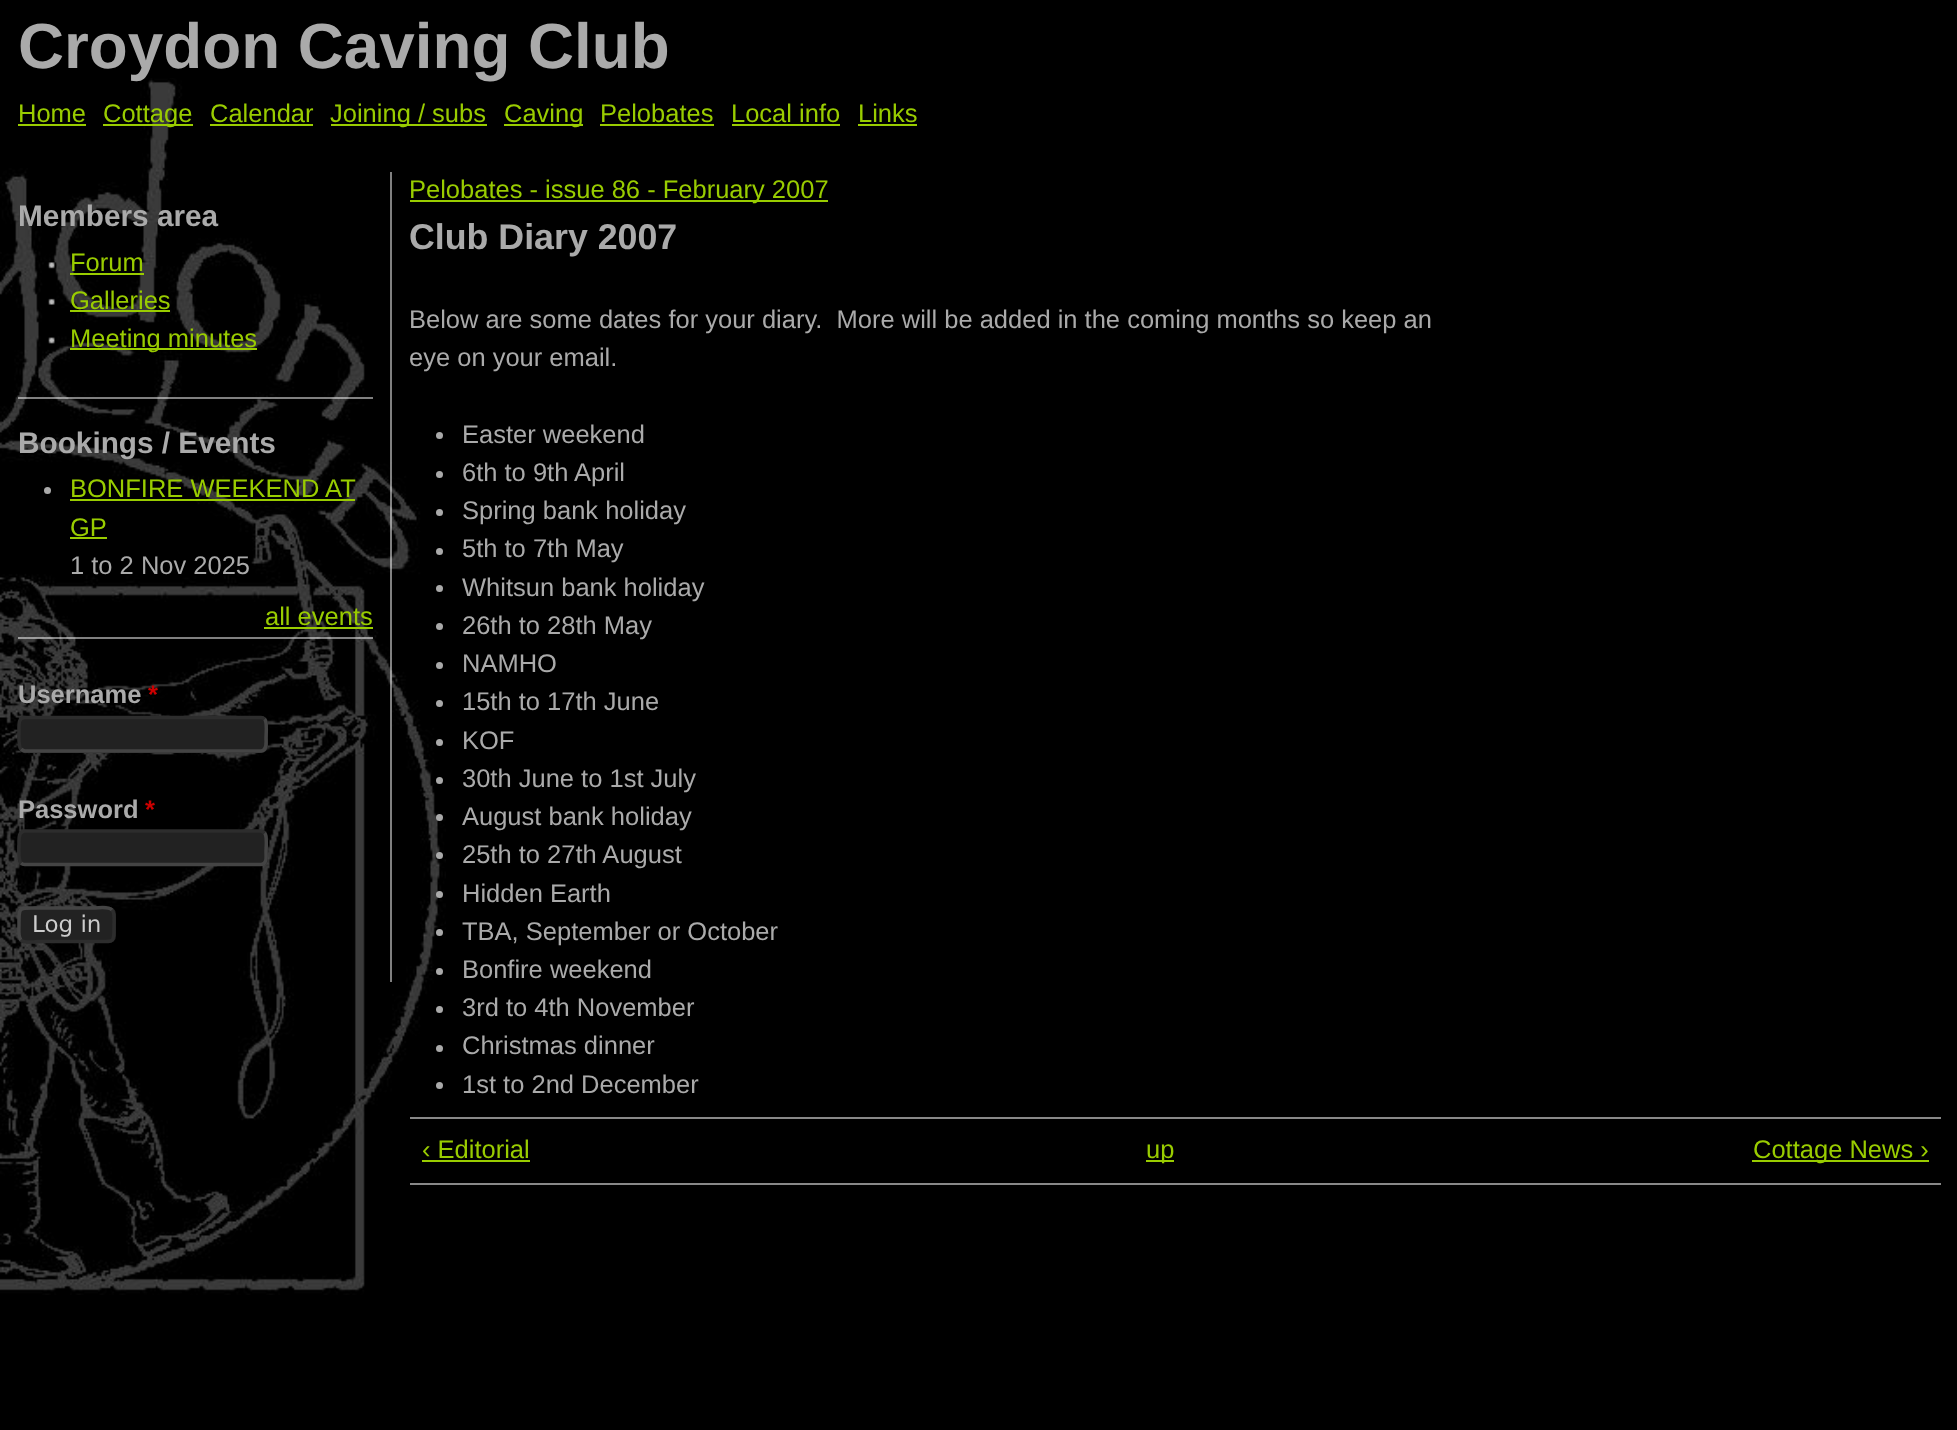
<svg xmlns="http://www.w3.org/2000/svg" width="1957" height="1430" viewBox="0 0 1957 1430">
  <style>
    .t1 { font: bold 63.75px Liberation Sans; fill: #aaa; }
    .t2 { font: 25.5px Liberation Sans; fill: #9c0; }
    .t3 { font: bold 29.75px Liberation Sans; fill: #aaa; }
    .t4 { font: 25.5px Liberation Sans; fill: #aaa; }
    .t5 { font: bold 25.5px Liberation Sans; fill: #aaa; }
    .t6 { font: bold 25.5px Liberation Sans; fill: #c00; }
    .t7 { font: 23px DejaVu Sans; fill: #ccc; }
    .t8 { font: bold 35.75px Liberation Sans; fill: #aaa; }
  </style>
  <rect width="100%" height="100%" fill="#000"/>
  <image x="0" y="78" width="446" height="1217" href="images/1.png"/>
  <text x="18" y="68" class="t1">Croydon Caving Club</text>
  <text x="18" y="122" class="t2">Home</text>
  <rect x="18" y="124" width="68" height="2" fill="#9c0"/>
  <rect x="103" y="124" width="90" height="2" fill="#9c0"/>
  <text x="103" y="122" class="t2">Cottage</text>
  <text x="210" y="122" class="t2">Calendar</text>
  <rect x="210" y="124" width="103" height="2" fill="#9c0"/>
  <rect x="331" y="124" width="156" height="2" fill="#9c0"/>
  <text x="330" y="122" class="t2">Joining / subs</text>
  <rect x="504" y="124" width="79" height="2" fill="#9c0"/>
  <text x="504" y="122" class="t2">Caving</text>
  <text x="600" y="122" class="t2">Pelobates</text>
  <rect x="600" y="124" width="114" height="2" fill="#9c0"/>
  <text x="731" y="122" class="t2">Local info</text>
  <rect x="732" y="124" width="108" height="2" fill="#9c0"/>
  <text x="858" y="122" class="t2">Links</text>
  <rect x="858" y="124" width="59" height="2" fill="#9c0"/>
  <rect x="390" y="172" width="2" height="810" fill="#ffffff80"/>
  <text x="18" y="226" class="t3">Members area</text>
  <image x="48" y="261" width="9" height="8" href="images/2.png"/>
  <text x="70" y="271" class="t2">Forum</text>
  <rect x="70" y="273" width="74" height="2" fill="#9c0"/>
  <image x="48" y="298" width="7" height="7" href="images/3.png"/>
  <text x="70" y="309" class="t2">Galleries</text>
  <rect x="70" y="310" width="100" height="2" fill="#9c0"/>
  <image x="48" y="337" width="7" height="7" href="images/4.png"/>
  <rect x="70" y="348" width="187" height="2" fill="#9c0"/>
  <text x="70" y="347" class="t2">Meeting minutes</text>
  <rect x="18" y="397" width="355" height="2" fill="#ffffff80"/>
  <text x="18" y="453" class="t3">Bookings / Events</text>
  <circle cx="47.5" cy="490.5" r="3.5" fill="#aaa"/>
  <text x="70" y="497" class="t2">BONFIRE WEEKEND AT</text>
  <rect x="70" y="499" width="285" height="2" fill="#9c0"/>
  <text x="70" y="536" class="t2">GP</text>
  <rect x="70" y="537" width="37" height="2" fill="#9c0"/>
  <text x="70" y="574" class="t4">1 to 2 Nov 2025</text>
  <text x="265" y="625" class="t2">all events</text>
  <rect x="264" y="627" width="109" height="2" fill="#9c0"/>
  <rect x="18" y="637" width="355" height="2" fill="#ffffff80"/>
  <text x="18" y="703" class="t5">Username</text>
  <text x="148" y="703" class="t6">*</text>
  <rect x="18" y="716" width="250" height="37" rx="7" fill="#222"/>
  <path d="M264.5 719C267.5 722 266 734 266 738C266 742 267.5 750.5 261 751H24.5C23 750.5 22 750 21 749" fill="none" stroke="#444" stroke-width="3.5"/>
  <path d="M21 749C18 746 19 734.5 19 730.5C19 726 18 717.5 24.5 717.5H261C262 717.5 263.5 718 264.5 719" fill="none" stroke="#2d2d2d" stroke-width="3.5"/>
  <text x="18" y="818" class="t5">Password</text>
  <text x="145" y="818" class="t6">*</text>
  <rect x="18" y="830" width="250" height="36" rx="7" fill="#222"/>
  <path d="M264.5 833C267.5 836 266 847.5 266 851.5C266 856 267.5 864.5 261 864.5H24.5C23 864.5 22 864 21 863" fill="none" stroke="#444" stroke-width="3.5"/>
  <path d="M21 863C18 860 19 848 19 844C19 840 18 831.5 24.5 831H261C262 831.5 263.5 832 264.5 833" fill="none" stroke="#2d2d2d" stroke-width="3.5"/>
  <rect x="18" y="907" width="98" height="36" rx="7" fill="#222"/>
  <path d="M112 910C115 912.5 114 921.5 114 925C114 944 115 941.5 94.5 941.5H38.5C38 941.5 24.5 943.5 21 940" fill="none" stroke="#2d2d2d" stroke-width="3.5"/>
  <path d="M21 940C18 937 19 928.5 19 925C19 906 18 908 38.5 908H94.5C95 908 108.5 906 112 910" fill="none" stroke="#444" stroke-width="3.5"/>
  <text x="32" y="932" class="t7">Log in</text>
  <rect x="410" y="200" width="418" height="2" fill="#9c0"/>
  <text x="409" y="198" class="t2">Pelobates - issue 86 - February 2007</text>
  <text x="409" y="249" class="t8">Club Diary 2007</text>
  <text x="409" y="328" class="t4" xml:space="preserve">Below are some dates for your diary.  More will be added in the coming months so keep an</text>
  <text x="409" y="366" class="t4">eye on your email.</text>
  <circle cx="439.5" cy="435.5" r="3.5" fill="#aaa"/>
  <text x="462" y="443" class="t4">Easter weekend</text>
  <circle cx="439.5" cy="474.5" r="3.5" fill="#aaa"/>
  <text x="462" y="481" class="t4">6th to 9th April</text>
  <circle cx="439.5" cy="512.5" r="3.5" fill="#aaa"/>
  <text x="462" y="519" class="t4">Spring bank holiday</text>
  <circle cx="439.5" cy="551.5" r="3.5" fill="#aaa"/>
  <text x="462" y="557" class="t4">5th to 7th May</text>
  <circle cx="439.5" cy="588.5" r="3.5" fill="#aaa"/>
  <text x="462" y="596" class="t4">Whitsun bank holiday</text>
  <circle cx="439.5" cy="626.5" r="3.5" fill="#aaa"/>
  <text x="462" y="634" class="t4">26th to 28th May</text>
  <circle cx="439.5" cy="665.5" r="3.5" fill="#aaa"/>
  <text x="462" y="672" class="t4">NAMHO</text>
  <circle cx="439.5" cy="703.5" r="3.5" fill="#aaa"/>
  <text x="462" y="710" class="t4">15th to 17th June</text>
  <circle cx="439.5" cy="742.5" r="3.5" fill="#aaa"/>
  <text x="462" y="749" class="t4">KOF</text>
  <circle cx="439.5" cy="780.5" r="3.5" fill="#aaa"/>
  <text x="462" y="787" class="t4">30th June to 1st July</text>
  <circle cx="439.5" cy="817.5" r="3.5" fill="#aaa"/>
  <text x="462" y="825" class="t4">August bank holiday</text>
  <circle cx="439.5" cy="855.5" r="3.5" fill="#aaa"/>
  <text x="462" y="863" class="t4">25th to 27th August</text>
  <circle cx="439.5" cy="894.5" r="3.5" fill="#aaa"/>
  <text x="462" y="902" class="t4">Hidden Earth</text>
  <circle cx="439.5" cy="932.5" r="3.5" fill="#aaa"/>
  <text x="462" y="940" class="t4">TBA, September or October</text>
  <circle cx="439.5" cy="971.5" r="3.5" fill="#aaa"/>
  <text x="462" y="978" class="t4">Bonfire weekend</text>
  <circle cx="439.5" cy="1009.5" r="3.5" fill="#aaa"/>
  <text x="462" y="1016" class="t4">3rd to 4th November</text>
  <circle cx="439.5" cy="1048.5" r="3.5" fill="#aaa"/>
  <text x="462" y="1054" class="t4">Christmas dinner</text>
  <circle cx="439.5" cy="1085.5" r="3.5" fill="#aaa"/>
  <text x="462" y="1093" class="t4">1st to 2nd December</text>
  <rect x="410" y="1117" width="1531" height="2" fill="#888"/>
  <rect x="410" y="1183" width="1531" height="2" fill="#888"/>
  <text x="422" y="1158" class="t2">‹ Editorial</text>
  <rect x="422" y="1160" width="108" height="2" fill="#9c0"/>
  <rect x="1146" y="1160" width="28" height="2" fill="#9c0"/>
  <text x="1146" y="1158" class="t2">up</text>
  <rect x="1752" y="1160" width="177" height="2" fill="#9c0"/>
  <text x="1753" y="1158" class="t2">Cottage News ›</text>
</svg>
